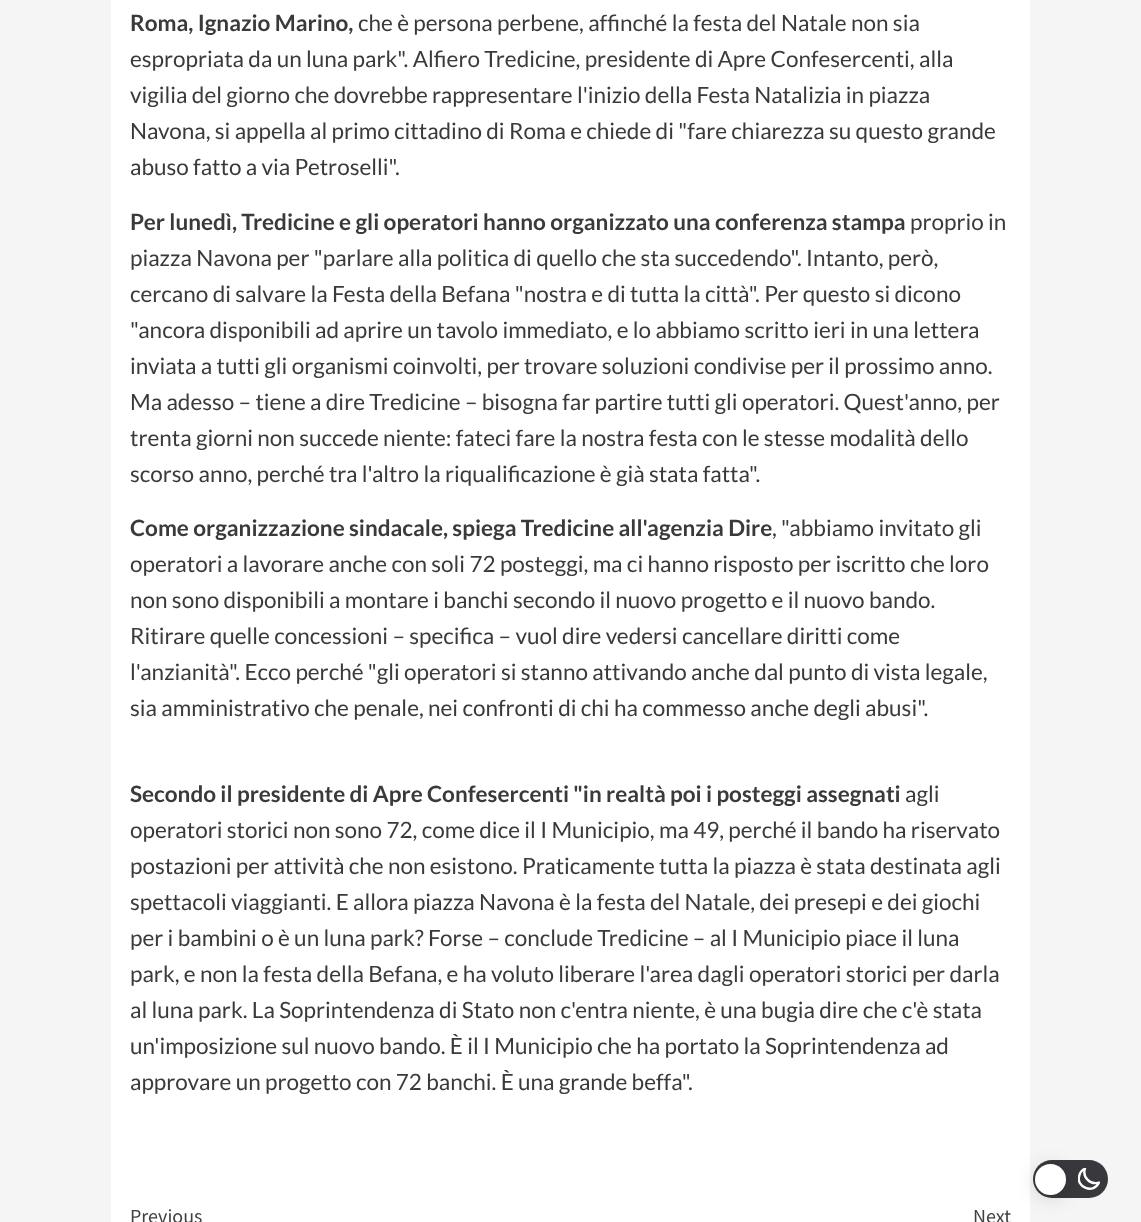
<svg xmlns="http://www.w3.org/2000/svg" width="1141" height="1222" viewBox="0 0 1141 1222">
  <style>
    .t1 { font: bold 22.5px Lato; fill: #3a3a3a; }
    .t2 { font: 22.5px Lato; fill: #3a3a3a; }
    .t3 { font: 20px Source Sans Pro; fill: #404040; }
  </style>
  <defs>
    <clipPath id="clip1"><rect x="1078" y="1168" width="22" height="22"/></clipPath>
  </defs>
  <rect width="100%" height="100%" fill="#f5f5f5"/>
  <rect x="111" y="0" width="919" height="1222" fill="#fff"/>
  <text x="130" y="31" class="t1">Roma, Ignazio Marino,</text>
  <text x="358" y="31" class="t2">che è persona perbene, affinché la festa del Natale non sia</text>
  <text x="130" y="67" class="t2">espropriata da un luna park". Alfiero Tredicine, presidente di Apre Confesercenti, alla</text>
  <text x="130" y="103" class="t2">vigilia del giorno che dovrebbe rappresentare l'inizio della Festa Natalizia in piazza</text>
  <text x="130" y="139" class="t2">Navona, si appella al primo cittadino di Roma e chiede di "fare chiarezza su questo grande</text>
  <text x="130" y="175" class="t2">abuso fatto a via Petroselli".</text>
  <text x="130" y="230" class="t1">Per lunedì, Tredicine e gli operatori hanno organizzato una conferenza stampa</text>
  <text x="910" y="230" class="t2">proprio in</text>
  <text x="130" y="266" class="t2">piazza Navona per "parlare alla politica di quello che sta succedendo". Intanto, però,</text>
  <text x="130" y="302" class="t2">cercano di salvare la Festa della Befana "nostra e di tutta la città". Per questo si dicono</text>
  <text x="130" y="338" class="t2">"ancora disponibili ad aprire un tavolo immediato, e lo abbiamo scritto ieri in una lettera</text>
  <text x="130" y="374" class="t2">inviata a tutti gli organismi coinvolti, per trovare soluzioni condivise per il prossimo anno.</text>
  <text x="130" y="410" class="t2">Ma adesso – tiene a dire Tredicine – bisogna far partire tutti gli operatori. Quest'anno, per</text>
  <text x="130" y="446" class="t2">trenta giorni non succede niente: fateci fare la nostra festa con le stesse modalità dello</text>
  <text x="130" y="482" class="t2">scorso anno, perché tra l'altro la riqualificazione è già stata fatta".</text>
  <text x="130" y="536" class="t1">Come organizzazione sindacale, spiega Tredicine all'agenzia Dire</text>
  <text x="772" y="536" class="t2">, "abbiamo invitato gli</text>
  <text x="130" y="572" class="t2">operatori a lavorare anche con soli 72 posteggi, ma ci hanno risposto per iscritto che loro</text>
  <text x="130" y="608" class="t2">non sono disponibili a montare i banchi secondo il nuovo progetto e il nuovo bando.</text>
  <text x="130" y="644" class="t2">Ritirare quelle concessioni – specifica – vuol dire vedersi cancellare diritti come</text>
  <text x="130" y="680" class="t2">l'anzianità". Ecco perché "gli operatori si stanno attivando anche dal punto di vista legale,</text>
  <text x="130" y="716" class="t2">sia amministrativo che penale, nei confronti di chi ha commesso anche degli abusi".</text>
  <text x="130" y="802" class="t1">Secondo il presidente di Apre Confesercenti "in realtà poi i posteggi assegnati</text>
  <text x="905" y="802" class="t2">agli</text>
  <text x="130" y="838" class="t2">operatori storici non sono 72, come dice il I Municipio, ma 49, perché il bando ha riservato</text>
  <text x="130" y="874" class="t2">postazioni per attività che non esistono. Praticamente tutta la piazza è stata destinata agli</text>
  <text x="130" y="910" class="t2">spettacoli viaggianti. E allora piazza Navona è la festa del Natale, dei presepi e dei giochi</text>
  <text x="130" y="946" class="t2">per i bambini o è un luna park? Forse – conclude Tredicine – al I Municipio piace il luna</text>
  <text x="130" y="982" class="t2">park, e non la festa della Befana, e ha voluto liberare l'area dagli operatori storici per darla</text>
  <text x="130" y="1018" class="t2">al luna park. La Soprintendenza di Stato non c'entra niente, è una bugia dire che c'è stata</text>
  <text x="130" y="1054" class="t2">un'imposizione sul nuovo bando. È il I Municipio che ha portato la Soprintendenza ad</text>
  <text x="130" y="1090" class="t2">approvare un progetto con 72 banchi. È una grande beffa".</text>
  <text x="130" y="1223" class="t3">Previous</text>
  <text x="973" y="1223" class="t3">Next</text>
  <rect x="1033" y="1160" width="75" height="38" rx="19" fill="#39393d"/>
  <g clip-path="url(#clip1)">
    <path d="M1099 1182.5C1090.5 1185.5 1082 1177 1085 1168.5C1082.5 1170 1080 1172 1079.5 1175C1075 1187.5 1094 1194.5 1099 1182.5Z" fill="none" stroke="#fff" stroke-width="2.3" stroke-linecap="round" stroke-linejoin="round"/>
  </g>
  <rect x="1035" y="1166" width="31" height="32" rx="15.5" fill="#00000026" filter="blur(9.5px)"/>
  <circle cx="1050.5" cy="1179.5" r="15.5" fill="#fff"/>
</svg>
